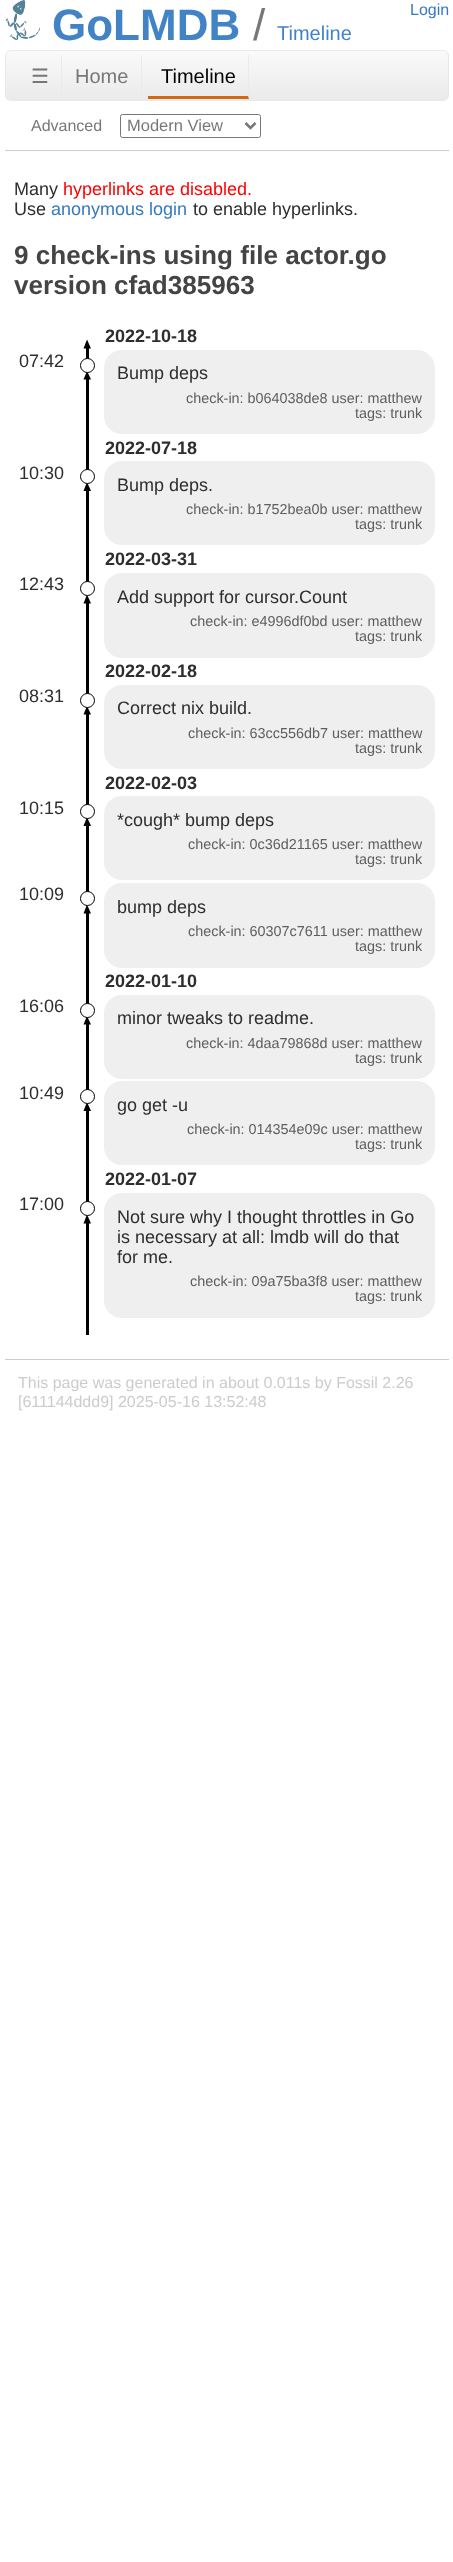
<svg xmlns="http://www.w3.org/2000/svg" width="453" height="2562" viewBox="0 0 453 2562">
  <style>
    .t1 { font: bold 44px Liberation Sans; fill: #4183c4; }
    .t2 { font: 44px Liberation Sans; fill: #777; }
    .t3 { font: 20px Liberation Sans; fill: #4183c4; }
    .t4 { font: 16px Liberation Sans; fill: #3779bf; }
    .t5 { font: 20px DejaVu Sans; fill: #777; }
    .t6 { font: 20px Liberation Sans; fill: #777; }
    .t7 { font: 20px Liberation Sans; fill: #000; }
    .t8 { font: 16px Liberation Sans; fill: #777; }
    .t9 { font: 16.5px Liberation Sans; fill: #777; }
    .t10 { font: 18px Liberation Sans; fill: #2e2e2e; }
    .t11 { font: 18px Liberation Sans; fill: #f00; }
    .t12 { font: 18px Liberation Sans; fill: #3779bf; }
    .t13 { font: bold 26.1px Liberation Sans; fill: #444; }
    .t14 { font: bold 18px Liberation Sans; fill: #2e2e2e; }
    .t15 { font: 14.4px Liberation Sans; fill: #5e5e5e; }
    .t16 { font: 16px Liberation Sans; fill: #ccc; }
  </style>
  <defs>
    <clipPath id="clip1"><rect x="5" y="50" width="444" height="51" rx="6"/></clipPath>
    <linearGradient id="g1" gradientUnits="userSpaceOnUse" x1="227" y1="51" x2="227" y2="100"><stop offset="0" stop-color="#fafafa"/><stop offset="1" stop-color="#eaeaea"/></linearGradient>
  </defs>
  <rect width="100%" height="100%" fill="#fff"/>
  <image x="5" y="0" width="35" height="40" href="images/1.png"/>
  <text x="52" y="40" class="t1">GoLMDB</text>
  <text x="253" y="40" class="t2">/</text>
  <text x="277" y="40" class="t3">Timeline</text>
  <text x="410" y="15" class="t4">Login</text>
  <g clip-path="url(#clip1)">
    <rect x="5" y="51" width="444" height="49" fill="url(#g1)"/>
  </g>
  <rect x="5.5" y="50.5" width="443" height="50" rx="5.5" fill="none" stroke="#eaeaea"/>
  <text x="31" y="83" class="t5">☰</text>
  <rect x="61" y="55" width="1" height="41" fill="#eaeaea"/>
  <text x="75" y="83" class="t6">Home</text>
  <rect x="141" y="55" width="1" height="41" fill="#eaeaea"/>
  <text x="161" y="83" class="t7">Timeline</text>
  <path d="M249 55V99L248 96V55Z" fill="#eaeaea"/>
  <path d="M249 99H148V96H248Z" fill="#d26911"/>
  <rect x="5" y="150" width="444" height="1" fill="#ccc"/>
  <text x="31" y="131" class="t8">Advanced</text>
  <rect x="120.5" y="114.5" width="140" height="23" rx="2" fill="none" stroke="#767676"/>
  <path d="M245.5 123L250.5 128L255.5 123" fill="none" stroke="#777" stroke-width="2.5"/>
  <text x="127" y="131" class="t9">Modern View</text>
  <text x="14" y="195" class="t10">Many</text>
  <text x="63" y="195" class="t11">hyperlinks are disabled.</text>
  <text x="14" y="215" class="t10">Use</text>
  <text x="51" y="215" class="t12">anonymous login</text>
  <text x="193" y="215" class="t10">to enable hyperlinks.</text>
  <text x="14" y="264" class="t13">9 check-ins using file actor.go</text>
  <text x="14" y="294" class="t13">version cfad385963</text>
  <text x="105" y="342" class="t14">2022-10-18</text>
  <rect x="86" y="346" width="3" height="19" fill="#000"/>
  <path d="M91 348.5H83.5L87 339.5Z" fill="#000"/>
  <rect x="86" y="378" width="3" height="98" fill="#000"/>
  <path d="M91 379.5H83.5L87 371Z" fill="#000"/>
  <circle cx="87.5" cy="365.5" r="7" fill="#fff" stroke="#000"/>
  <rect x="86" y="489" width="3" height="100" fill="#000"/>
  <path d="M91 491H83.5L87 482Z" fill="#000"/>
  <circle cx="87.5" cy="476.5" r="7" fill="#fff" stroke="#000"/>
  <rect x="86" y="601" width="3" height="99" fill="#000"/>
  <path d="M91 603.5H83.5L87 594.5Z" fill="#000"/>
  <circle cx="87.5" cy="588.5" r="7" fill="#fff" stroke="#000"/>
  <rect x="86" y="713" width="3" height="98" fill="#000"/>
  <path d="M91 714.5H83.5L87 706Z" fill="#000"/>
  <circle cx="87.5" cy="700.5" r="7" fill="#fff" stroke="#000"/>
  <rect x="86" y="824" width="3" height="75" fill="#000"/>
  <path d="M91 826H83.5L87 817Z" fill="#000"/>
  <circle cx="87.5" cy="811.5" r="7" fill="#fff" stroke="#000"/>
  <rect x="86" y="911" width="3" height="99" fill="#000"/>
  <path d="M91 913.5H83.5L87 904.5Z" fill="#000"/>
  <circle cx="87.5" cy="898.5" r="7" fill="#fff" stroke="#000"/>
  <rect x="86" y="1023" width="3" height="73" fill="#000"/>
  <path d="M91 1024.5H83.5L87 1016Z" fill="#000"/>
  <circle cx="87.5" cy="1010.5" r="7" fill="#fff" stroke="#000"/>
  <rect x="86" y="1109" width="3" height="100" fill="#000"/>
  <path d="M91 1111H83.5L87 1102Z" fill="#000"/>
  <circle cx="87.5" cy="1096.5" r="7" fill="#fff" stroke="#000"/>
  <rect x="86" y="1221" width="3" height="114" fill="#000"/>
  <path d="M91 1223.5H83.5L87 1214.5Z" fill="#000"/>
  <circle cx="87.5" cy="1208.5" r="7" fill="#fff" stroke="#000"/>
  <text x="19" y="367" class="t10">07:42</text>
  <rect x="104" y="350" width="331" height="84" rx="18" fill="#efefef"/>
  <text x="117" y="379" class="t10">Bump deps</text>
  <text x="186" y="403" class="t15">check-in: b064038de8 user: matthew</text>
  <text x="355" y="418" class="t15">tags: trunk</text>
  <text x="105" y="454" class="t14">2022-07-18</text>
  <text x="19" y="479" class="t10">10:30</text>
  <rect x="104" y="461" width="331" height="84" rx="18" fill="#efefef"/>
  <text x="117" y="491" class="t10">Bump deps.</text>
  <text x="186" y="514" class="t15">check-in: b1752bea0b user: matthew</text>
  <text x="355" y="529" class="t15">tags: trunk</text>
  <text x="105" y="565" class="t14">2022-03-31</text>
  <text x="19" y="590" class="t10">12:43</text>
  <rect x="104" y="573" width="331" height="85" rx="18" fill="#efefef"/>
  <text x="117" y="603" class="t10">Add support for cursor.Count</text>
  <text x="190" y="626" class="t15">check-in: e4996df0bd user: matthew</text>
  <text x="355" y="641" class="t15">tags: trunk</text>
  <text x="105" y="677" class="t14">2022-02-18</text>
  <text x="19" y="702" class="t10">08:31</text>
  <rect x="104" y="685" width="331" height="84" rx="18" fill="#efefef"/>
  <text x="117" y="714" class="t10">Correct nix build.</text>
  <text x="188" y="738" class="t15">check-in: 63cc556db7 user: matthew</text>
  <text x="355" y="753" class="t15">tags: trunk</text>
  <text x="105" y="789" class="t14">2022-02-03</text>
  <text x="19" y="814" class="t10">10:15</text>
  <rect x="104" y="796" width="331" height="84" rx="18" fill="#efefef"/>
  <text x="117" y="826" class="t10">*cough* bump deps</text>
  <text x="188" y="849" class="t15">check-in: 0c36d21165 user: matthew</text>
  <text x="355" y="864" class="t15">tags: trunk</text>
  <text x="19" y="900" class="t10">10:09</text>
  <rect x="104" y="883" width="331" height="85" rx="18" fill="#efefef"/>
  <text x="117" y="913" class="t10">bump deps</text>
  <text x="188" y="936" class="t15">check-in: 60307c7611 user: matthew</text>
  <text x="355" y="951" class="t15">tags: trunk</text>
  <text x="105" y="987" class="t14">2022-01-10</text>
  <text x="19" y="1012" class="t10">16:06</text>
  <rect x="104" y="995" width="331" height="84" rx="18" fill="#efefef"/>
  <text x="117" y="1024" class="t10">minor tweaks to readme.</text>
  <text x="186" y="1048" class="t15">check-in: 4daa79868d user: matthew</text>
  <text x="355" y="1063" class="t15">tags: trunk</text>
  <text x="19" y="1099" class="t10">10:49</text>
  <rect x="104" y="1081" width="331" height="84" rx="18" fill="#efefef"/>
  <text x="117" y="1111" class="t10">go get -u</text>
  <text x="187" y="1134" class="t15">check-in: 014354e09c user: matthew</text>
  <text x="355" y="1149" class="t15">tags: trunk</text>
  <text x="105" y="1185" class="t14">2022-01-07</text>
  <text x="19" y="1210" class="t10">17:00</text>
  <rect x="104" y="1193" width="331" height="125" rx="18" fill="#efefef"/>
  <text x="117" y="1223" class="t10">Not sure why I thought throttles in Go</text>
  <text x="117" y="1243" class="t10">is necessary at all: lmdb will do that</text>
  <text x="117" y="1263" class="t10">for me.</text>
  <text x="190" y="1286" class="t15">check-in: 09a75ba3f8 user: matthew</text>
  <text x="355" y="1301" class="t15">tags: trunk</text>
  <rect x="5" y="1359" width="444" height="1" fill="#ccc"/>
  <text x="18" y="1388" class="t16">This page was generated in about 0.011s by Fossil 2.26</text>
  <text x="18" y="1407" class="t16">[611144ddd9] 2025-05-16 13:52:48</text>
</svg>
